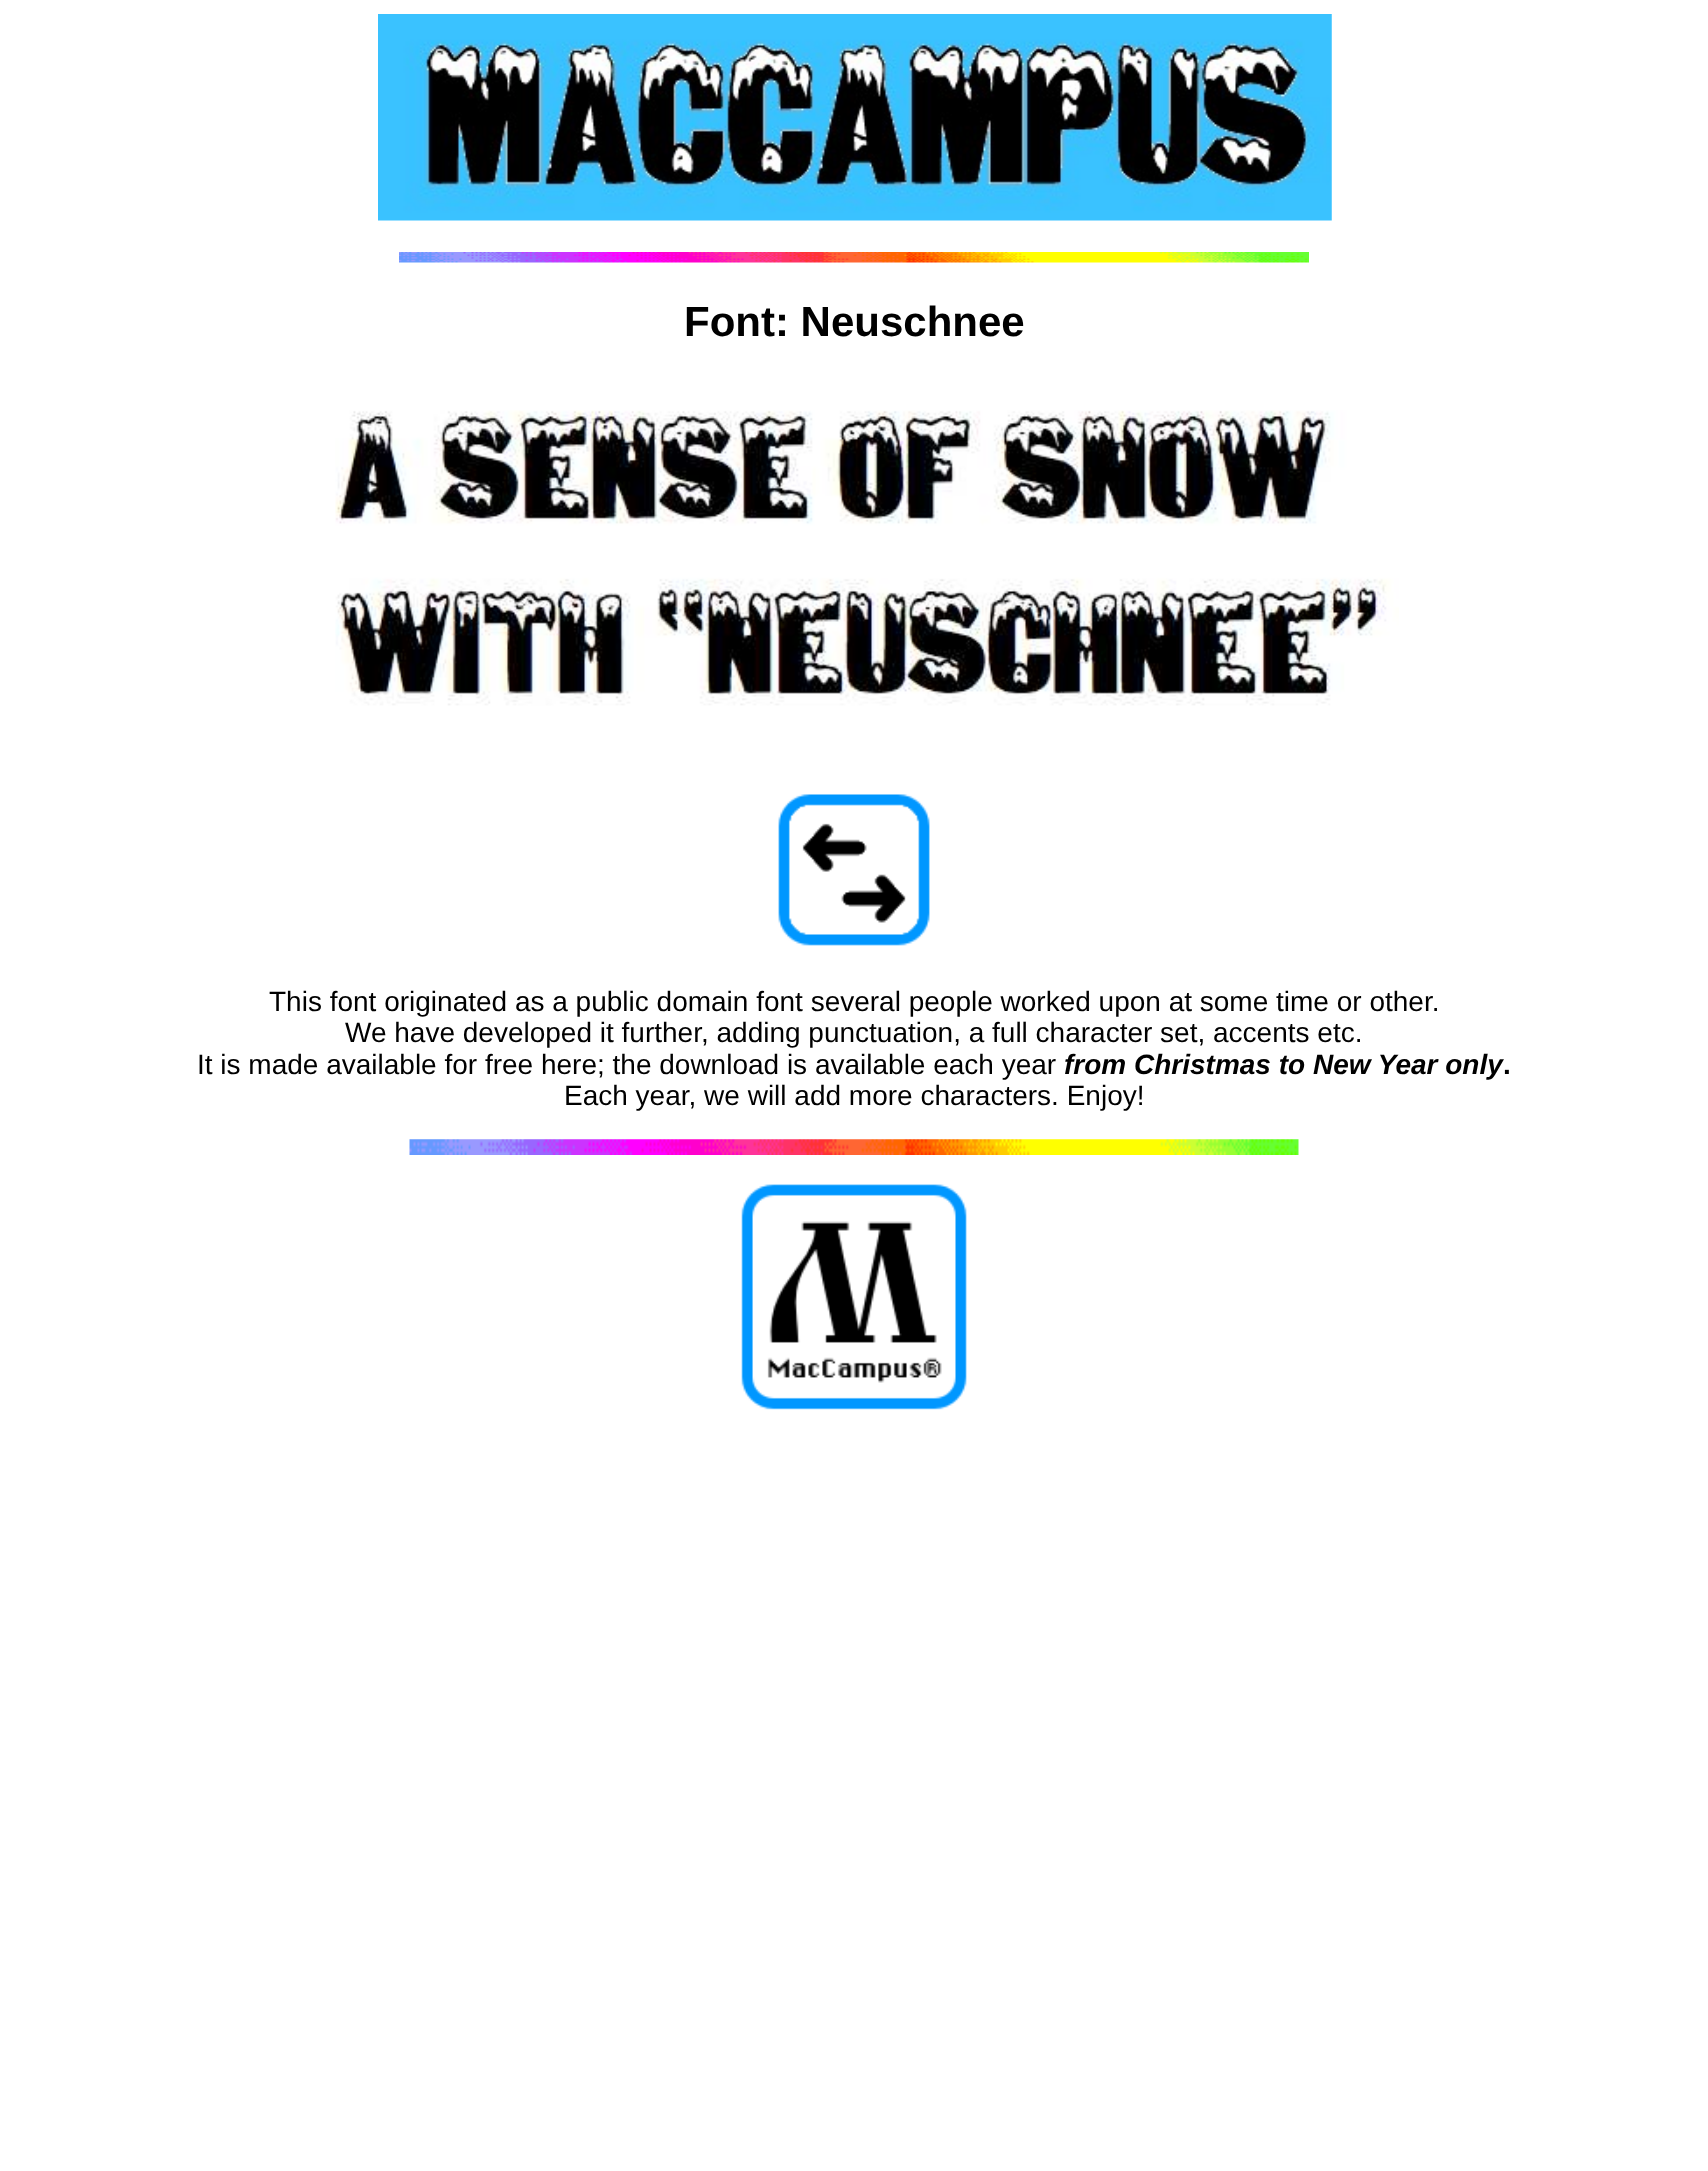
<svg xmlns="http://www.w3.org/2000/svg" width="1708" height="2171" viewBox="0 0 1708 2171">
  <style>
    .t1 { font: bold 42px Liberation Sans; fill: #000; }
    .t2 { font: 28px Liberation Sans; fill: #000; }
    .t3 { font: italic bold 28px Liberation Sans; fill: #000; }
    .t4 { font: bold 28px Liberation Sans; fill: #000; }
  </style>
  <rect width="100%" height="100%" fill="#fff"/>
  <image x="378" y="14" width="954" height="207" href="images/1.png"/>
  <image x="399" y="252" width="910" height="11" href="images/2.png"/>
  <text x="684" y="336" class="t1">Font: Neuschnee</text>
  <image x="335" y="410" width="1064" height="296" href="images/3.png"/>
  <image x="778" y="794" width="152" height="152" href="images/4.png"/>
  <text x="269" y="1011" class="t2">This font originated as a public domain font several people worked upon at some time or other.</text>
  <text x="345" y="1042" class="t2">We have developed it further, adding punctuation, a full character set, accents etc.</text>
  <text x="197" y="1074" class="t2">It is made available for free here; the download is available each year</text>
  <text x="1064" y="1074" class="t3">from Christmas to New Year only</text>
  <text x="1503" y="1074" class="t4">.</text>
  <text x="564" y="1105" class="t2">Each year, we will add more characters. Enjoy!</text>
  <image x="409" y="1139" width="890" height="16" href="images/5.png"/>
  <image x="741" y="1184" width="226" height="226" href="images/6.png"/>
</svg>
